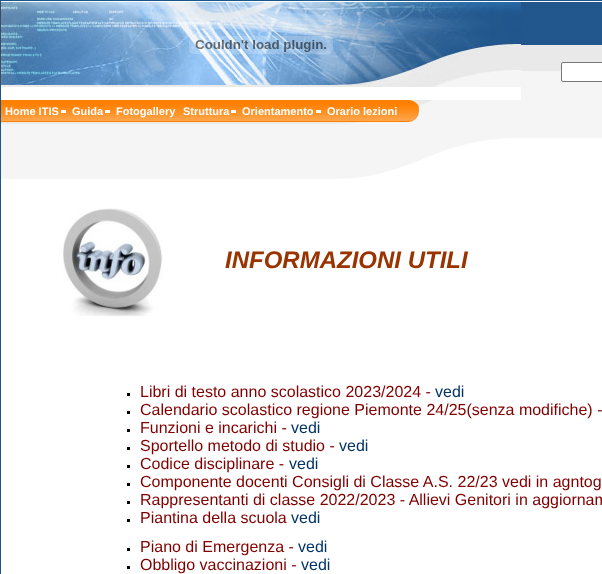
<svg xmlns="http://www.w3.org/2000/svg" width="602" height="574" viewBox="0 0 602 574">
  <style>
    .t1 { font: bold 11px Liberation Sans; fill: #fff; }
    .t2 { font: italic bold 24px Liberation Sans; fill: #930; }
    .t3 { font: 16px Liberation Sans; fill: #800000; }
    .t4 { font: 16px Liberation Sans; fill: #036; }
  </style>
  <rect width="100%" height="100%" fill="#fff"/>
  <rect x="0.5" y="0.5" width="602" height="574" fill="none" stroke="#1e5589"/>
  <image x="1" y="2" width="520" height="85" href="images/1.png"/>
  <image x="189" y="36" width="144" height="18" href="images/2.png"/>
  <image x="521" y="2" width="81" height="98" href="images/3.png"/>
  <rect x="561.5" y="62.5" width="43" height="19" rx="1.5" fill="#fff" stroke="#767676"/>
  <image x="1" y="100" width="520" height="79" href="images/4.png"/>
  <image x="1" y="100" width="400" height="22" href="images/5.png"/>
  <text x="5" y="115" class="t1">Home ITIS</text>
  <rect x="61" y="110" width="5" height="3" fill="#fff"/>
  <text x="72" y="115" class="t1">Guida</text>
  <rect x="105" y="110" width="5" height="3" fill="#fff"/>
  <text x="116" y="115" class="t1">Fotogallery</text>
  <text x="183" y="115" class="t1">Struttura</text>
  <rect x="231" y="110" width="5" height="3" fill="#fff"/>
  <text x="242" y="115" class="t1">Orientamento</text>
  <rect x="316" y="110" width="5" height="3" fill="#fff"/>
  <text x="327" y="115" class="t1">Orario lezioni</text>
  <image x="401" y="100" width="18" height="22" href="images/6.png"/>
  <rect x="521" y="100" width="81" height="38" fill="#f5f5f5"/>
  <image x="63" y="208" width="100" height="108" href="images/7.png"/>
  <text x="225" y="268" class="t2">INFORMAZIONI UTILI</text>
  <rect x="127" y="393" width="3" height="3" fill="#000"/>
  <text x="140" y="397" class="t3">Libri di testo anno scolastico 2023/2024 -</text>
  <text x="435" y="397" class="t4">vedi</text>
  <rect x="127" y="411" width="3" height="3" fill="#000"/>
  <text x="140" y="415" class="t3">Calendario scolastico regione Piemonte 24/25(senza modifiche) -</text>
  <rect x="127" y="429" width="3" height="3" fill="#000"/>
  <text x="140" y="433" class="t3">Funzioni e incarichi -</text>
  <text x="291" y="433" class="t4">vedi</text>
  <rect x="127" y="447" width="3" height="3" fill="#000"/>
  <text x="140" y="451" class="t3">Sportello metodo di studio -</text>
  <text x="339" y="451" class="t4">vedi</text>
  <rect x="127" y="465" width="3" height="3" fill="#000"/>
  <text x="140" y="469" class="t3">Codice disciplinare -</text>
  <text x="289" y="469" class="t4">vedi</text>
  <rect x="127" y="483" width="3" height="3" fill="#000"/>
  <text x="140" y="487" class="t3">Componente docenti Consigli di Classe A.S. 22/23 vedi in agntog</text>
  <rect x="127" y="501" width="3" height="3" fill="#000"/>
  <text x="140" y="505" class="t3">Rappresentanti di classe 2022/2023 - Allievi Genitori in aggiornam</text>
  <rect x="127" y="519" width="3" height="3" fill="#000"/>
  <text x="140" y="523" class="t3">Piantina della scuola</text>
  <text x="291" y="523" class="t4">vedi</text>
  <rect x="127" y="548" width="3" height="3" fill="#000"/>
  <text x="140" y="552" class="t3">Piano di Emergenza -</text>
  <text x="298" y="552" class="t4">vedi</text>
  <rect x="127" y="566" width="3" height="3" fill="#000"/>
  <text x="140" y="570" class="t3">Obbligo vaccinazioni -</text>
  <text x="301" y="570" class="t4">vedi</text>
</svg>
